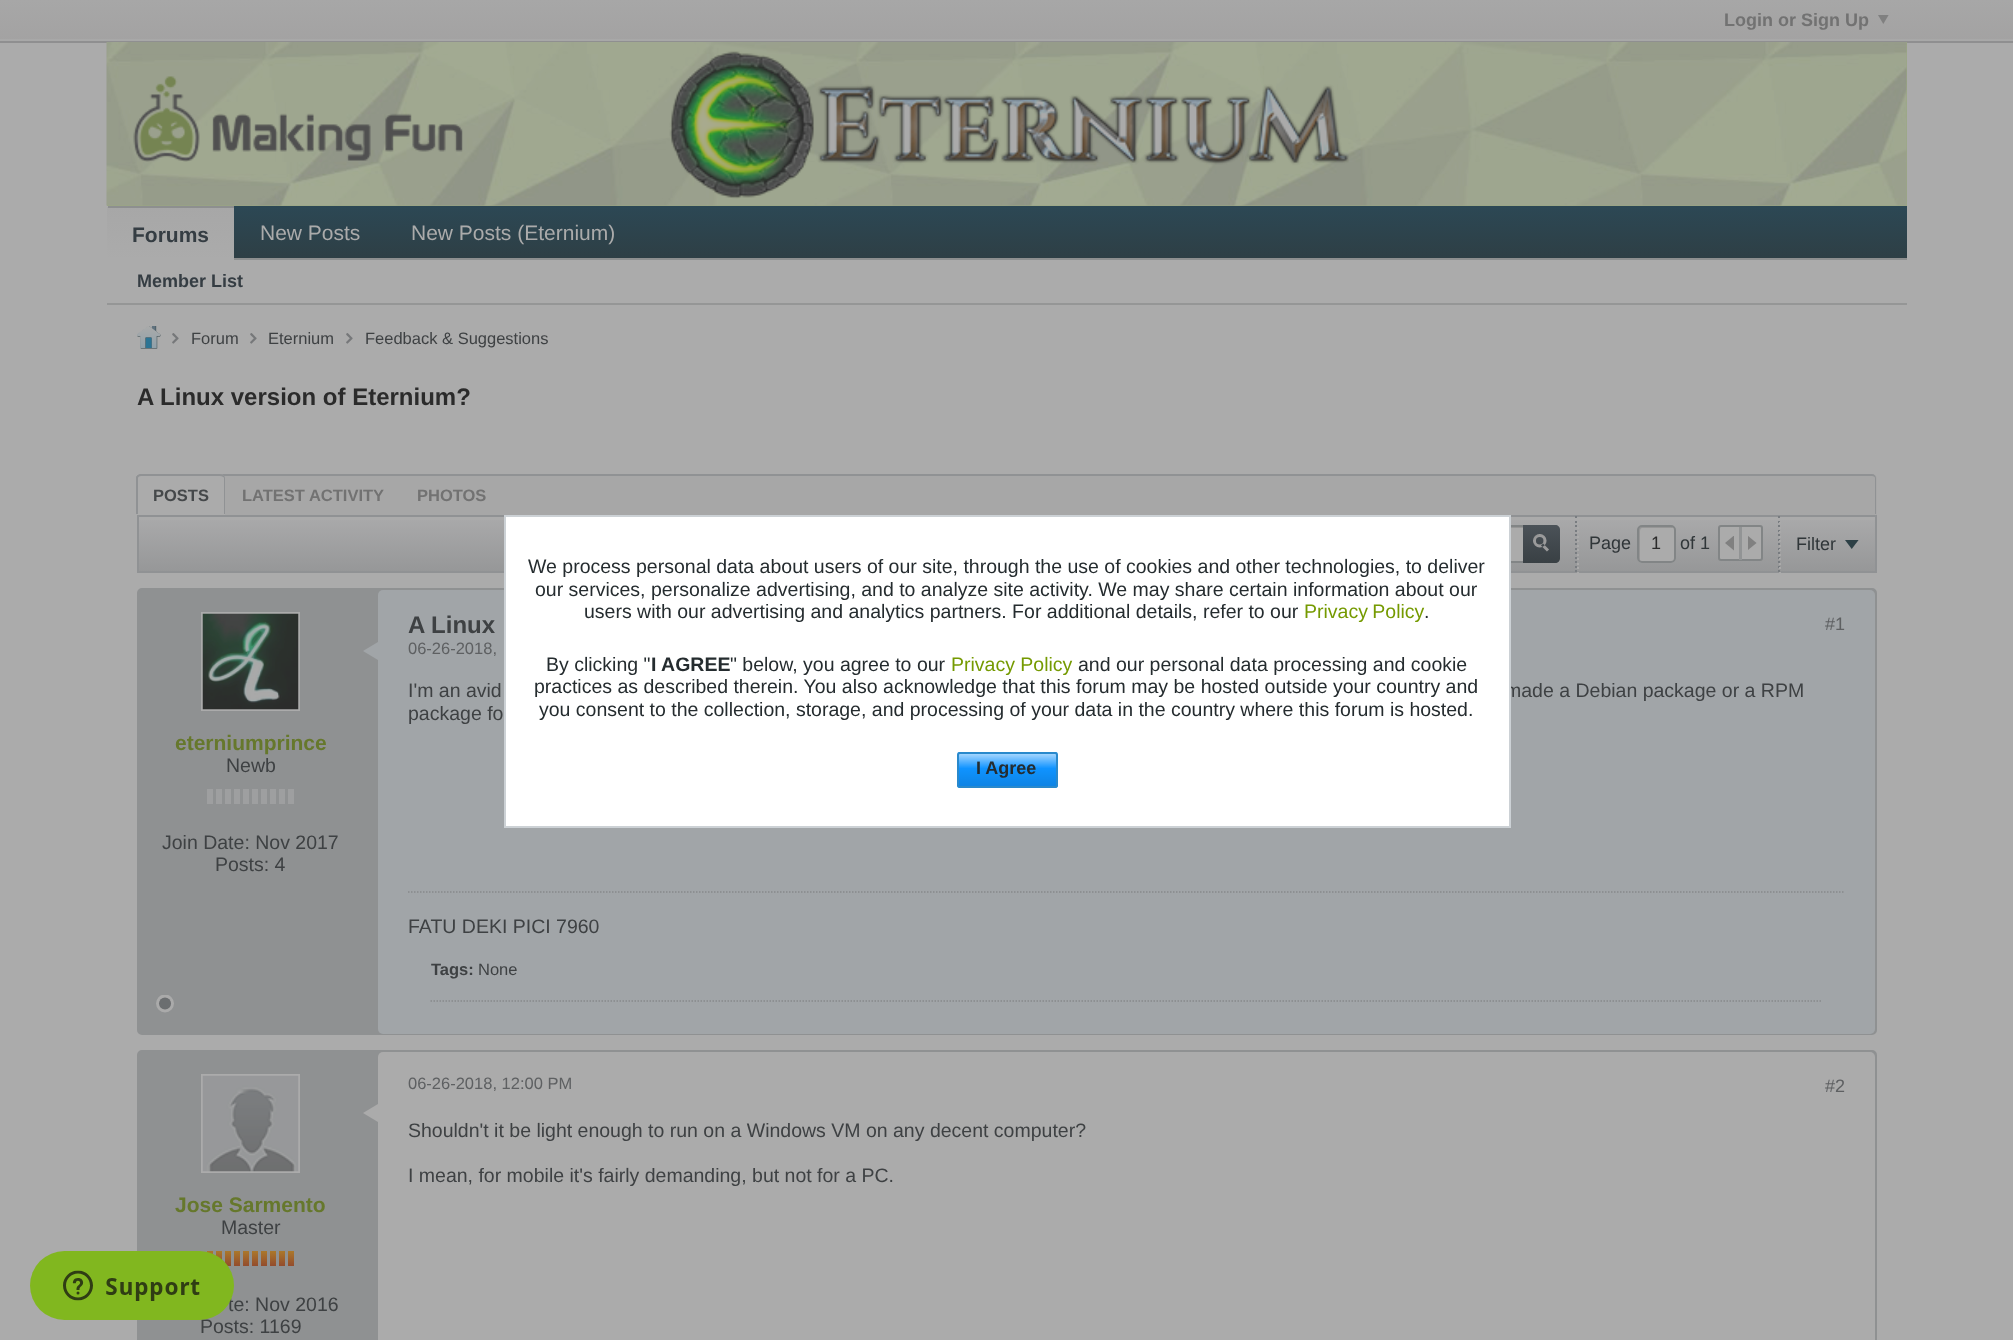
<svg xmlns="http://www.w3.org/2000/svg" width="2013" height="1340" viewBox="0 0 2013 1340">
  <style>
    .t1 { font: bold 18px Liberation Sans; fill: #727272; }
    .t2 { font: bold 21px Liberation Sans; fill: #353d43; }
    .t3 { font: 21px Liberation Sans; fill: #ababab; }
    .t4 { font: bold 18px Liberation Sans; fill: #353d43; }
    .t5 { font: 16.5px Liberation Sans; fill: #3e4143; }
    .t6 { font: bold 24px Liberation Sans; fill: #2b2b2b; }
    .t7 { font: bold 16.5px Liberation Sans; fill: #45484a; }
    .t8 { font: bold 16.5px Liberation Sans; fill: #727272; }
    .t9 { font: 18px Liberation Sans; fill: #303639; }
    .t10 { font: 18px Liberation Sans; fill: #2b2b2b; }
    .t11 { font: bold 21px Liberation Sans; fill: #66782c; }
    .t12 { font: 19.5px Liberation Sans; fill: #3e4143; }
    .t13 { font: bold 24px Liberation Sans; fill: #3e4143; }
    .t14 { font: 16.5px Liberation Sans; fill: #5e6062; }
    .t15 { font: 18px Liberation Sans; fill: #5e6062; }
    .t16 { font: bold 16.5px Liberation Sans; fill: #3e4143; }
    .t17 { font: 19.5px Liberation Sans; fill: #252c2f; }
    .t18 { font: 19.5px Liberation Sans; fill: #759a01; }
    .t19 { font: bold 19.5px Liberation Sans; fill: #252c2f; }
    .t20 { font: bold 18px Liberation Sans; fill: #252c2f; }
  </style>
  <defs>
    <linearGradient id="g1" gradientUnits="userSpaceOnUse" x1="1007" y1="0" x2="1007" y2="42"><stop offset="0" stop-color="#a7a7a7"/><stop offset="1" stop-color="#a3a2a2"/></linearGradient>
    <linearGradient id="g2" gradientUnits="userSpaceOnUse" x1="1007" y1="205" x2="1007" y2="258"><stop offset="0" stop-color="#2c4855"/><stop offset="1" stop-color="#2e3f45"/></linearGradient>
    <linearGradient id="g3" gradientUnits="userSpaceOnUse" x1="170" y1="155" x2="170" y2="207"><stop offset="0" stop-color="#a7a7a7"/><stop offset="1" stop-color="#ababab"/></linearGradient>
    <linearGradient id="g4" gradientUnits="userSpaceOnUse" x1="170" y1="207" x2="170" y2="260"><stop offset="0" stop-color="#a7a7a7"/><stop offset="1" stop-color="#ababab"/></linearGradient>
    <linearGradient id="g5" gradientUnits="userSpaceOnUse" x1="1007" y1="516" x2="1007" y2="572"><stop offset="0" stop-color="#aaaaab"/><stop offset="1" stop-color="#969798"/></linearGradient>
    <linearGradient id="g6" gradientUnits="userSpaceOnUse" x1="1541" y1="525" x2="1541" y2="563"><stop offset="0" stop-color="#4b5258"/><stop offset="1" stop-color="#394044"/></linearGradient>
    <linearGradient id="g7" gradientUnits="userSpaceOnUse" x1="210" y1="1251" x2="210" y2="1266"><stop offset="0" stop-color="#ab782b"/><stop offset="1" stop-color="#934c2d"/></linearGradient>
    <linearGradient id="g8" gradientUnits="userSpaceOnUse" x1="219" y1="1251" x2="219" y2="1266"><stop offset="0" stop-color="#ab782b"/><stop offset="1" stop-color="#934c2d"/></linearGradient>
    <linearGradient id="g9" gradientUnits="userSpaceOnUse" x1="228" y1="1251" x2="228" y2="1266"><stop offset="0" stop-color="#ab782b"/><stop offset="1" stop-color="#934c2d"/></linearGradient>
    <linearGradient id="g10" gradientUnits="userSpaceOnUse" x1="237" y1="1251" x2="237" y2="1266"><stop offset="0" stop-color="#ab782b"/><stop offset="1" stop-color="#934c2d"/></linearGradient>
    <linearGradient id="g11" gradientUnits="userSpaceOnUse" x1="246" y1="1251" x2="246" y2="1266"><stop offset="0" stop-color="#ab782b"/><stop offset="1" stop-color="#934c2d"/></linearGradient>
    <linearGradient id="g12" gradientUnits="userSpaceOnUse" x1="255" y1="1251" x2="255" y2="1266"><stop offset="0" stop-color="#ab782b"/><stop offset="1" stop-color="#934c2d"/></linearGradient>
    <linearGradient id="g13" gradientUnits="userSpaceOnUse" x1="264" y1="1251" x2="264" y2="1266"><stop offset="0" stop-color="#ab782b"/><stop offset="1" stop-color="#934c2d"/></linearGradient>
    <linearGradient id="g14" gradientUnits="userSpaceOnUse" x1="273" y1="1251" x2="273" y2="1266"><stop offset="0" stop-color="#ab782b"/><stop offset="1" stop-color="#934c2d"/></linearGradient>
    <linearGradient id="g15" gradientUnits="userSpaceOnUse" x1="282" y1="1251" x2="282" y2="1266"><stop offset="0" stop-color="#ab782b"/><stop offset="1" stop-color="#934c2d"/></linearGradient>
    <linearGradient id="g16" gradientUnits="userSpaceOnUse" x1="291" y1="1251" x2="291" y2="1266"><stop offset="0" stop-color="#ab782b"/><stop offset="1" stop-color="#934c2d"/></linearGradient>
    <linearGradient id="g17" gradientUnits="userSpaceOnUse" x1="1007" y1="785" x2="1007" y2="752"><stop offset="0" stop-color="#000" stop-opacity="0.1"/><stop offset="0.5" stop-color="#000" stop-opacity="0"/><stop offset="0.5" stop-color="#fff" stop-opacity="0"/><stop offset="1" stop-color="#fff" stop-opacity="0.7"/></linearGradient>
  </defs>
  <rect width="100%" height="100%" fill="#ababab"/>
  <rect x="0" y="0" width="2013" height="39" fill="url(#g1)"/>
  <text x="1724" y="26" class="t1">Login or Sign Up</text>
  <image x="1878" y="15" width="11" height="9" href="images/1.png"/>
  <rect x="0" y="39" width="2013" height="2" fill="#a8a8a8"/>
  <rect x="0" y="41" width="2013" height="2" fill="#8f8f90"/>
  <rect x="107" y="42" width="1800" height="164" fill="#9ba881"/>
  <image x="106" y="42" width="1801" height="164" href="images/3.png"/>
  <image x="669" y="51" width="680" height="148" href="images/2.png"/>
  <image x="133" y="76" width="330" height="86" href="images/4.png"/>
  <rect x="107" y="206" width="1800" height="52" fill="url(#g2)"/>
  <rect x="234" y="258" width="1673" height="2" fill="#8d8f8f"/>
  <rect x="107" y="206" width="1" height="1" fill="url(#g3)"/>
  <rect x="107" y="207" width="127" height="51" fill="url(#g4)"/>
  <rect x="108" y="206" width="126" height="2" fill="#8d8f8f"/>
  <text x="132" y="242" class="t2">Forums</text>
  <text x="260" y="240" class="t3">New Posts</text>
  <text x="411" y="240" class="t3">New Posts (Eternium)</text>
  <rect x="107" y="303" width="1800" height="2" fill="#959696"/>
  <text x="137" y="287" class="t4">Member List</text>
  <image x="137" y="326" width="24" height="23" href="images/5.png"/>
  <image x="172" y="333" width="7" height="11" href="images/6.png"/>
  <text x="191" y="344" class="t5">Forum</text>
  <image x="250" y="333" width="7" height="11" href="images/7.png"/>
  <text x="268" y="344" class="t5">Eternium</text>
  <image x="346" y="333" width="7" height="11" href="images/6.png"/>
  <text x="365" y="344" class="t5">Feedback &amp; Suggestions</text>
  <text x="137" y="405" class="t6">A Linux version of Eternium?</text>
  <path d="M142 474H1872C1875 474 1877 476 1877 479V515H137V479C137 476 139 474 142 474Z" fill="#a7a7a7"/>
  <path d="M141 474H1872C1874 474 1876 476 1876 478V514H136V478C136 476 139 474 141 474ZM141 476H1872C1874 476 1875 477 1875 478V514H138V478C138 477 139 476 141 476Z" fill="#909294" fill-rule="evenodd"/>
  <path d="M142 474H220C223 474 225 476 225 479V515H137V479C137 476 139 474 142 474Z" fill="#ababab"/>
  <path d="M141 474H220C223 474 225 476 225 478V514H136V478C136 476 139 474 141 474ZM141 476H220C222 476 224 477 224 478V514H138V478C138 477 139 476 141 476Z" fill="#909294" fill-rule="evenodd"/>
  <text x="153" y="501" class="t7">POSTS</text>
  <text x="242" y="501" class="t8">LATEST ACTIVITY</text>
  <text x="417" y="501" class="t8">PHOTOS</text>
  <rect x="139" y="520" width="1736" height="51" fill="url(#g5)"/>
  <rect x="138" y="516" width="1738" height="56" fill="none" stroke="#909294" stroke-width="2"/>
  <rect x="1301" y="525" width="259" height="38" rx="5" fill="#ababab"/>
  <path d="M1306 528H1558C1558 527 1557 527 1556 527H1305C1303 527 1302 528 1302 530V558C1302 559 1303 561 1304 561V536C1304 535 1303 528 1306 528Z" fill="#969696"/>
  <rect x="1302" y="526" width="257" height="36" rx="4" fill="none" stroke="#828586" stroke-width="2"/>
  <path d="M1523 525H1555C1558 525 1560 527 1560 530V558C1560 561 1558 563 1555 563H1523Z" fill="url(#g6)"/>
  <image x="1533" y="534" width="16" height="18" href="images/8.png"/>
  <image x="1575" y="516" width="2" height="56" href="images/9.png"/>
  <image x="1577" y="522" width="2" height="51" href="images/10.png"/>
  <text x="1589" y="549" class="t9">Page</text>
  <rect x="1637" y="525" width="39" height="38" rx="5" fill="#ababab"/>
  <path d="M1642 528H1673.5C1673 527.5 1672 527 1671 527H1641C1639.5 527 1638 528.5 1638 530V558C1638 559.5 1639 560.5 1640.5 561L1640 560V531C1640 529 1641 528 1642 528Z" fill="#969696"/>
  <rect x="1638" y="526" width="37" height="36" rx="4" fill="none" stroke="#828586" stroke-width="2"/>
  <text x="1651" y="549" class="t10">1</text>
  <text x="1680" y="549" class="t9">of 1</text>
  <rect x="1719" y="526" width="43" height="34" rx="2" fill="#ababab" stroke="#828586" stroke-width="2"/>
  <rect x="1739" y="527" width="3" height="33" fill="#929495"/>
  <image x="1725" y="536" width="9" height="15" href="images/11.png"/>
  <image x="1748" y="536" width="9" height="14" href="images/12.png"/>
  <image x="1778" y="516" width="2" height="56" href="images/9.png"/>
  <image x="1779" y="522" width="2" height="51" href="images/13.png"/>
  <text x="1796" y="550" class="t9">Filter</text>
  <image x="1845" y="540" width="14" height="9" href="images/14.png"/>
  <rect x="138" y="589" width="1738" height="445" rx="4" fill="#8f9192" stroke="#8f9192" stroke-width="2"/>
  <rect x="202" y="613" width="97" height="97" fill="none" stroke="#ababab" stroke-width="2"/>
  <image x="202" y="613" width="97" height="97" href="images/15.png"/>
  <text x="175" y="750" class="t11">eterniumprince</text>
  <text x="226" y="772" class="t12">Newb</text>
  <rect x="207" y="789" width="6" height="15" fill="#9e9fa0"/>
  <rect x="216" y="789" width="6" height="15" fill="#9e9fa0"/>
  <rect x="225" y="789" width="6" height="15" fill="#9e9fa0"/>
  <rect x="234" y="789" width="6" height="15" fill="#9e9fa0"/>
  <rect x="243" y="789" width="6" height="15" fill="#9e9fa0"/>
  <rect x="252" y="789" width="6" height="15" fill="#9e9fa0"/>
  <rect x="261" y="789" width="6" height="15" fill="#9e9fa0"/>
  <rect x="270" y="789" width="6" height="15" fill="#9e9fa0"/>
  <rect x="279" y="789" width="6" height="15" fill="#9e9fa0"/>
  <rect x="288" y="789" width="6" height="15" fill="#9e9fa0"/>
  <text x="162" y="849" class="t12">Join Date: Nov 2017</text>
  <text x="215" y="871" class="t12">Posts: 4</text>
  <image x="156" y="995" width="18" height="18" href="images/16.png"/>
  <rect x="378" y="590" width="1497" height="444" rx="5" fill="#a1a5a8"/>
  <path d="M378 642V660L363 651Z" fill="#a1a5a8"/>
  <text x="408" y="633" class="t13">A Linux</text>
  <text x="408" y="654" class="t14">06-26-2018,</text>
  <text x="1825" y="630" class="t15">#1</text>
  <text x="408" y="697" class="t12">I'm an avid</text>
  <text x="1505" y="697" class="t12">made a Debian package or a RPM</text>
  <text x="408" y="720" class="t12">package fo</text>
  <path d="M408 892H1845" fill="none" stroke="#87898a" stroke-width="1.5" stroke-dasharray="1.5 1.5"/>
  <text x="408" y="933" class="t12">FATU DEKI PICI 7960</text>
  <text x="431" y="975" class="t16">Tags:</text>
  <text x="478" y="975" class="t5">None</text>
  <path d="M430.5 1001H1822.5" fill="none" stroke="#87898a" stroke-width="1.5" stroke-dasharray="1.5 1.5"/>
  <rect x="138" y="1051" width="1738" height="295" rx="4" fill="#8f9192" stroke="#8f9192" stroke-width="2"/>
  <rect x="378" y="1052" width="1497" height="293" rx="5" fill="#ababab"/>
  <path d="M378 1104V1122L363 1113Z" fill="#ababab"/>
  <text x="408" y="1089" class="t14">06-26-2018, 12:00 PM</text>
  <text x="1825" y="1092" class="t15">#2</text>
  <text x="408" y="1137" class="t12">Shouldn't it be light enough to run on a Windows VM on any decent computer?</text>
  <text x="408" y="1182" class="t12">I mean, for mobile it's fairly demanding, but not for a PC.</text>
  <rect x="202" y="1075" width="97" height="97" fill="none" stroke="#ababab" stroke-width="2"/>
  <image x="202" y="1075" width="97" height="97" href="images/17.png"/>
  <text x="175" y="1212" class="t11">Jose Sarmento</text>
  <text x="221" y="1234" class="t12">Master</text>
  <rect x="207" y="1251" width="6" height="3" fill="url(#g7)"/>
  <rect x="216" y="1251" width="6" height="15" fill="url(#g8)"/>
  <rect x="225" y="1251" width="6" height="15" fill="url(#g9)"/>
  <rect x="234" y="1251" width="6" height="15" fill="url(#g10)"/>
  <rect x="243" y="1251" width="6" height="15" fill="url(#g11)"/>
  <rect x="252" y="1251" width="6" height="15" fill="url(#g12)"/>
  <rect x="261" y="1251" width="6" height="15" fill="url(#g13)"/>
  <rect x="270" y="1251" width="6" height="15" fill="url(#g14)"/>
  <rect x="279" y="1251" width="6" height="15" fill="url(#g15)"/>
  <rect x="288" y="1251" width="6" height="15" fill="url(#g16)"/>
  <text x="228" y="1311" class="t12">te: Nov 2016</text>
  <text x="200" y="1333" class="t12">Posts: 1169</text>
  <rect x="505" y="516" width="1005" height="311" fill="#fff" stroke="#ccd1d5" stroke-width="2"/>
  <text x="528" y="573" class="t17">We process personal data about users of our site, through the use of cookies and other technologies, to deliver</text>
  <text x="535" y="596" class="t17">our services, personalize advertising, and to analyze site activity. We may share certain information about our</text>
  <text x="584" y="618" class="t17">users with our advertising and analytics partners. For additional details, refer to our</text>
  <text x="1304" y="618" word-spacing="-1" class="t18">Privacy Policy</text>
  <text x="1424" y="618" class="t17">.</text>
  <text x="546" y="671" class="t17">By clicking "</text>
  <text x="651" y="671" class="t19">I AGREE</text>
  <text x="730" y="671" class="t17">" below, you agree to our</text>
  <text x="951" y="671" class="t18">Privacy Policy</text>
  <text x="1078" y="671" class="t17">and our personal data processing and cookie</text>
  <text x="534" y="693" class="t17">practices as described therein. You also acknowledge that this forum may be hosted outside your country and</text>
  <text x="539" y="716" class="t17">you consent to the collection, storage, and processing of your data in the country where this forum is hosted.</text>
  <rect x="957" y="752" width="101" height="36" rx="3" fill="#0f93ff"/>
  <rect x="957" y="753" width="101" height="33" fill="url(#g17)"/>
  <rect x="958" y="753" width="99" height="34" rx="2" fill="none" stroke="#2989cc" stroke-width="2"/>
  <text x="976" y="774" class="t20">I Agree</text>
  <image x="30" y="1251" width="204" height="69" href="images/18.png"/>
</svg>
